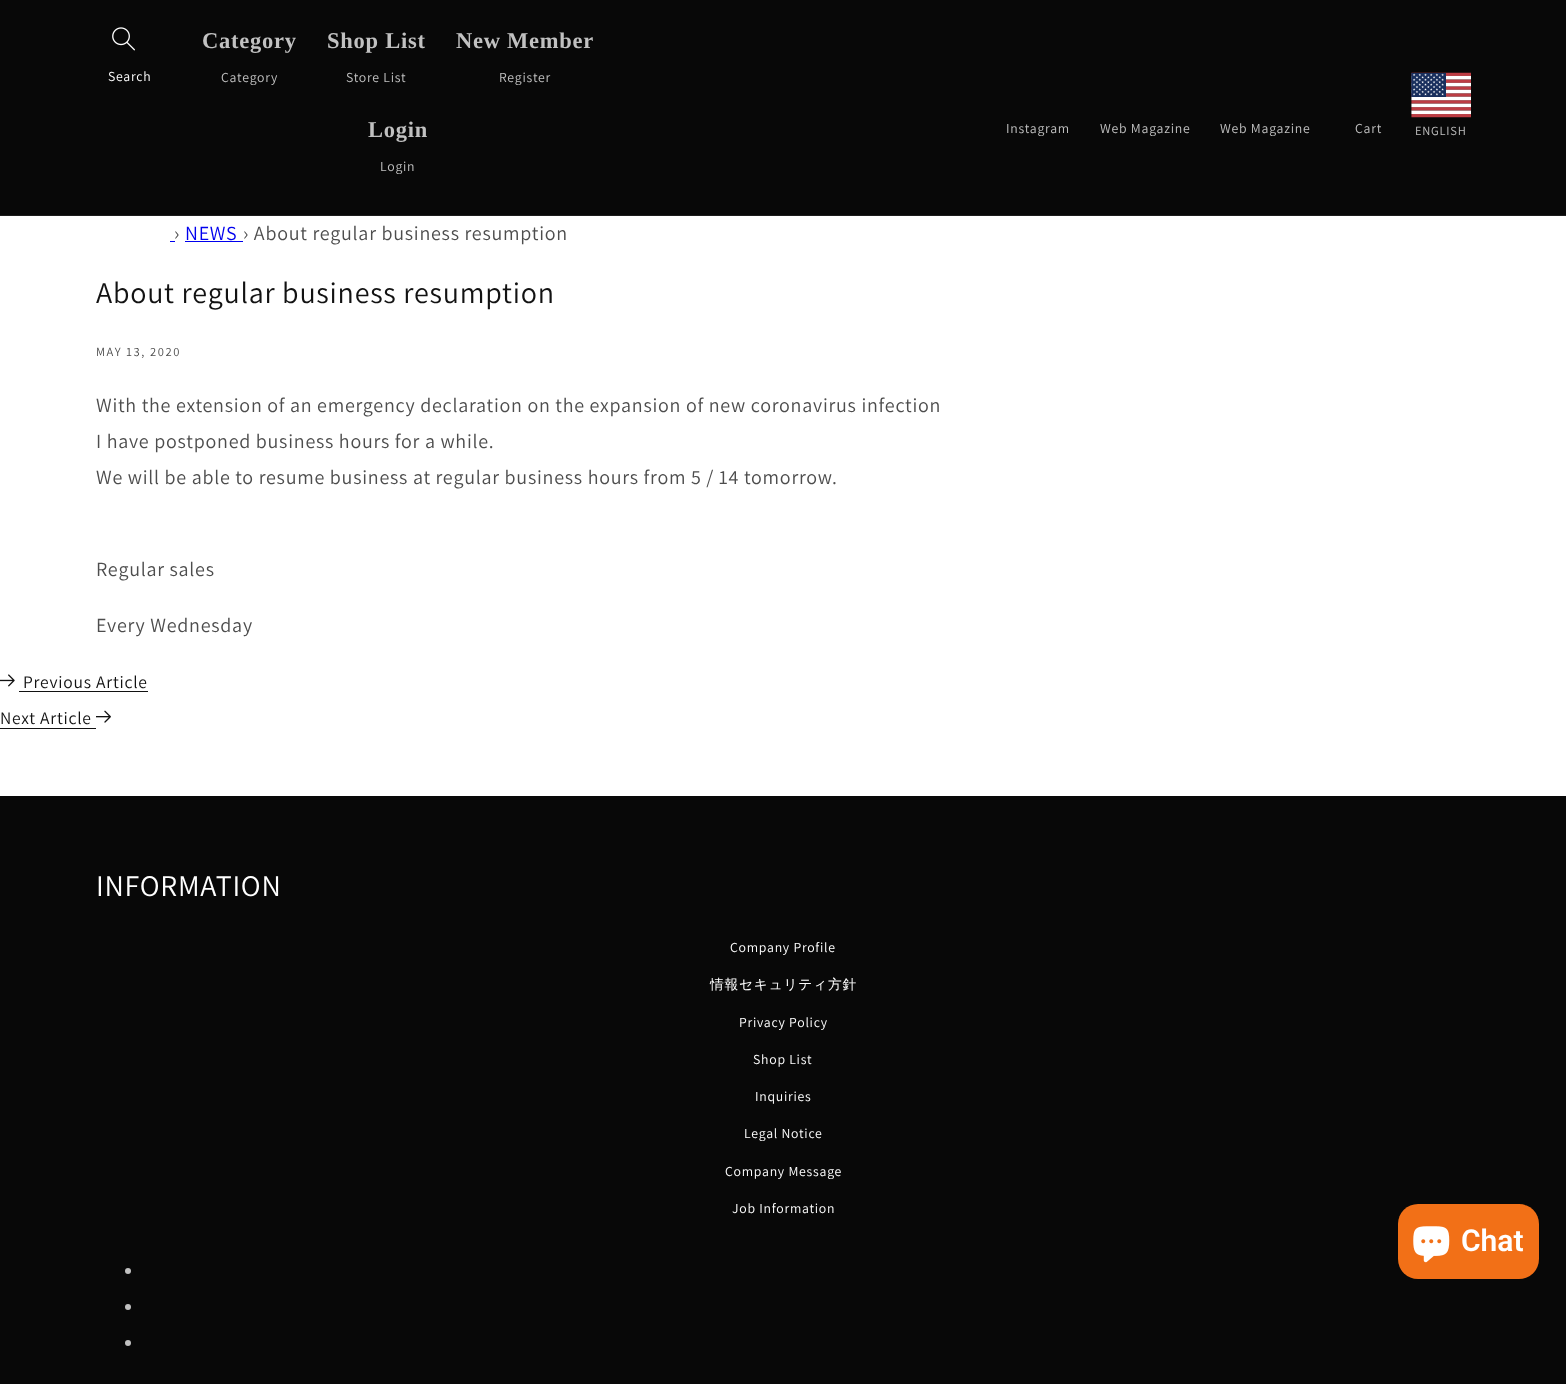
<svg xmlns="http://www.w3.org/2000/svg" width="1566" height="1384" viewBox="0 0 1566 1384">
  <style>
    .t1 { font: 13.75px Assistant; letter-spacing: 0.75px; fill: #fff; }
    .t2 { font: bold 22.5px Liberation Serif; letter-spacing: 0.75px; fill: #c1c1c1; }
    .t3 { font: 13.75px Assistant; letter-spacing: 0.75px; fill: #c1c1c1; }
    .t4 { font: 12.5px Assistant; letter-spacing: 0.75px; fill: #c1c1c1; }
    .t5 { font: 20px Assistant; letter-spacing: 0.75px; fill: #4d4d4d; }
    .t6 { font: 20px Assistant; letter-spacing: 0.75px; fill: #00e; }
    .t7 { font: 30px Assistant; letter-spacing: 0.75px; fill: #121212; }
    .t8 { font: 12.5px Assistant; letter-spacing: 1.6px; fill: #4d4d4d; }
    .t9 { font: 17.5px Assistant; letter-spacing: 0.75px; fill: #121212; }
    .t10 { font: 30px Assistant; letter-spacing: 0.75px; fill: #fff; }
    .t11 { font: 500 13.75px WenQuanYi Zen Hei; letter-spacing: 0.75px; fill: #fff; }
    .t12 { font: 600 30px Roboto; fill: #fff; }
  </style>
  <rect width="100%" height="100%" fill="#fff"/>
  <rect x="0" y="0" width="1566" height="215" fill="#080808"/>
  <rect x="0" y="215" width="1566" height="1" fill="#1c1c1c"/>
  <image x="112" y="27" width="23" height="24" href="images/1.png"/>
  <text x="108" y="81" class="t1">Search</text>
  <text x="202" y="48" class="t2">Category</text>
  <text x="221" y="82" class="t3">Category</text>
  <text x="327" y="48" class="t2">Shop List</text>
  <text x="346" y="82" class="t3">Store List</text>
  <text x="456" y="48" class="t2">New Member</text>
  <text x="499" y="82" class="t3">Register</text>
  <text x="368" y="137" class="t2">Login</text>
  <text x="380" y="171" class="t3">Login</text>
  <text x="1006" y="133" class="t3">Instagram</text>
  <text x="1100" y="133" class="t3">Web Magazine</text>
  <text x="1220" y="133" class="t3">Web Magazine</text>
  <text x="1355" y="133" class="t3">Cart</text>
  <image x="1411" y="72" width="60" height="46" href="images/2.png"/>
  <text x="1415" y="135" class="t4">ENGLISH</text>
  <text x="174" y="240" class="t5">›</text>
  <text x="185" y="240" class="t6">NEWS</text>
  <rect x="185" y="241" width="58" height="1" fill="#00e"/>
  <text x="243" y="240" class="t5">› About regular business resumption</text>
  <rect x="170" y="241" width="5" height="1" fill="#00e"/>
  <text x="96" y="303" class="t7">About regular business resumption</text>
  <text x="96" y="356" class="t8">MAY 13, 2020</text>
  <text x="96" y="412" class="t5">With the extension of an emergency declaration on the expansion of new coronavirus infection</text>
  <text x="96" y="448" class="t5">I have postponed business hours for a while.</text>
  <text x="96" y="484" class="t5">We will be able to resume business at regular business hours from 5 / 14 tomorrow.</text>
  <text x="96" y="576" class="t5">Regular sales</text>
  <text x="96" y="632" class="t5">Every Wednesday</text>
  <image x="0" y="674" width="15" height="13" href="images/3.png"/>
  <text x="23" y="688" class="t9">Previous Article</text>
  <rect x="19" y="691" width="129" height="1" fill="#121212"/>
  <text x="0" y="724" class="t9">Next Article</text>
  <rect x="0" y="728" width="96" height="1" fill="#121212"/>
  <image x="96" y="710" width="15" height="13" href="images/4.png"/>
  <rect x="0" y="796" width="1566" height="588" fill="#080808"/>
  <text x="96" y="896" class="t10">INFORMATION</text>
  <text x="730" y="952" class="t1">Company Profile</text>
  <text x="710" y="989" class="t11">情報セキュリティ方針</text>
  <text x="739" y="1027" class="t1">Privacy Policy</text>
  <text x="753" y="1064" class="t1">Shop List</text>
  <text x="755" y="1101" class="t1">Inquiries</text>
  <text x="744" y="1138" class="t1">Legal Notice</text>
  <text x="725" y="1176" class="t1">Company Message</text>
  <text x="732" y="1213" class="t1">Job Information</text>
  <circle cx="128" cy="1271" r="3" fill="#c1c1c1"/>
  <circle cx="128" cy="1307" r="3" fill="#c1c1c1"/>
  <circle cx="128" cy="1343" r="3" fill="#c1c1c1"/>
  <rect x="1398" y="1204" width="141" height="75" rx="20" fill="#f27017"/>
  <image x="1413" y="1226" width="37" height="37" href="images/5.png"/>
  <text x="1461" y="1251" class="t12">Chat</text>
</svg>
